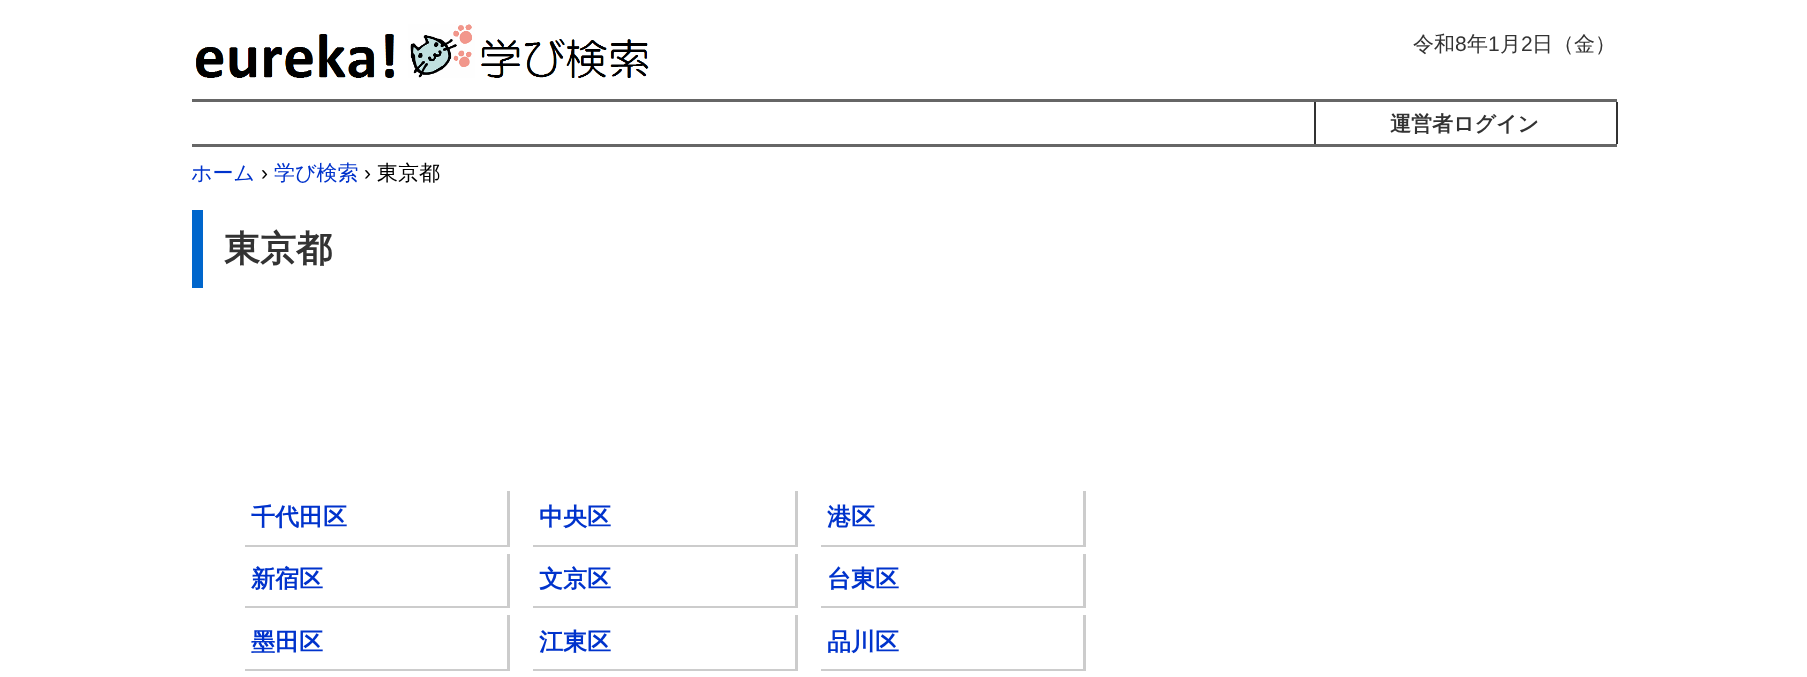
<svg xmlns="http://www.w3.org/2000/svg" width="1807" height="677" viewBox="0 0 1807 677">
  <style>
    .t1 { font: 500 21px WenQuanYi Zen Hei; fill: #333; }
    .t2 { font: 21px Liberation Sans; fill: #333; }
    .t3 { font: bold 21px WenQuanYi Zen Hei; fill: #333; }
    .t4 { font: 500 21px WenQuanYi Zen Hei; fill: #03c; }
    .t5 { font: 21px Liberation Sans; fill: #000; }
    .t6 { font: 500 21px WenQuanYi Zen Hei; fill: #000; }
    .t7 { font: bold 36px WenQuanYi Zen Hei; fill: #333; }
    .t8 { font: bold 24px WenQuanYi Zen Hei; fill: #03c; }
  </style>
  <rect width="100%" height="100%" fill="#fff"/>
  <image x="196" y="24" width="453" height="54" href="images/1.png"/>
  <text x="1413" y="51" class="t1">令和</text>
  <text x="1455" y="51" class="t2">8</text>
  <text x="1467" y="51" class="t1">年</text>
  <text x="1488" y="51" class="t2">1</text>
  <text x="1500" y="51" class="t1">月</text>
  <text x="1521" y="51" class="t2">2</text>
  <text x="1532" y="51" class="t1">日（金）</text>
  <rect x="192" y="99" width="1425" height="3" fill="#666"/>
  <rect x="192" y="144" width="1425" height="3" fill="#666"/>
  <rect x="1616" y="102" width="2" height="42" fill="#333"/>
  <rect x="1314" y="102" width="2" height="42" fill="#333"/>
  <text x="1390" y="131" class="t3">運営者ログイン</text>
  <text x="191" y="180" class="t4">ホーム</text>
  <text x="261" y="180" class="t5">›</text>
  <text x="274" y="180" class="t4">学び検索</text>
  <text x="364" y="180" class="t5">›</text>
  <text x="377" y="180" class="t6">東京都</text>
  <rect x="192" y="210" width="11" height="78" fill="#06c"/>
  <text x="224" y="261" class="t7">東京都</text>
  <rect x="507" y="491" width="3" height="55" fill="#ccc"/>
  <rect x="245" y="545" width="265" height="2" fill="#ccc"/>
  <text x="251" y="525" class="t8">千代田区</text>
  <rect x="795" y="491" width="3" height="55" fill="#ccc"/>
  <rect x="533" y="545" width="265" height="2" fill="#ccc"/>
  <text x="539" y="525" class="t8">中央区</text>
  <rect x="1083" y="491" width="3" height="55" fill="#ccc"/>
  <rect x="821" y="545" width="265" height="2" fill="#ccc"/>
  <text x="827" y="525" class="t8">港区</text>
  <rect x="507" y="554" width="3" height="54" fill="#ccc"/>
  <rect x="245" y="606" width="265" height="2" fill="#ccc"/>
  <text x="251" y="587" class="t8">新宿区</text>
  <rect x="795" y="554" width="3" height="54" fill="#ccc"/>
  <rect x="533" y="606" width="265" height="2" fill="#ccc"/>
  <text x="539" y="587" class="t8">文京区</text>
  <rect x="1083" y="554" width="3" height="54" fill="#ccc"/>
  <rect x="821" y="606" width="265" height="2" fill="#ccc"/>
  <text x="827" y="587" class="t8">台東区</text>
  <rect x="507" y="615" width="3" height="56" fill="#ccc"/>
  <rect x="245" y="669" width="265" height="2" fill="#ccc"/>
  <text x="251" y="650" class="t8">墨田区</text>
  <rect x="795" y="615" width="3" height="56" fill="#ccc"/>
  <rect x="533" y="669" width="265" height="2" fill="#ccc"/>
  <text x="539" y="650" class="t8">江東区</text>
  <rect x="1083" y="615" width="3" height="56" fill="#ccc"/>
  <rect x="821" y="669" width="265" height="2" fill="#ccc"/>
  <text x="827" y="650" class="t8">品川区</text>
</svg>
